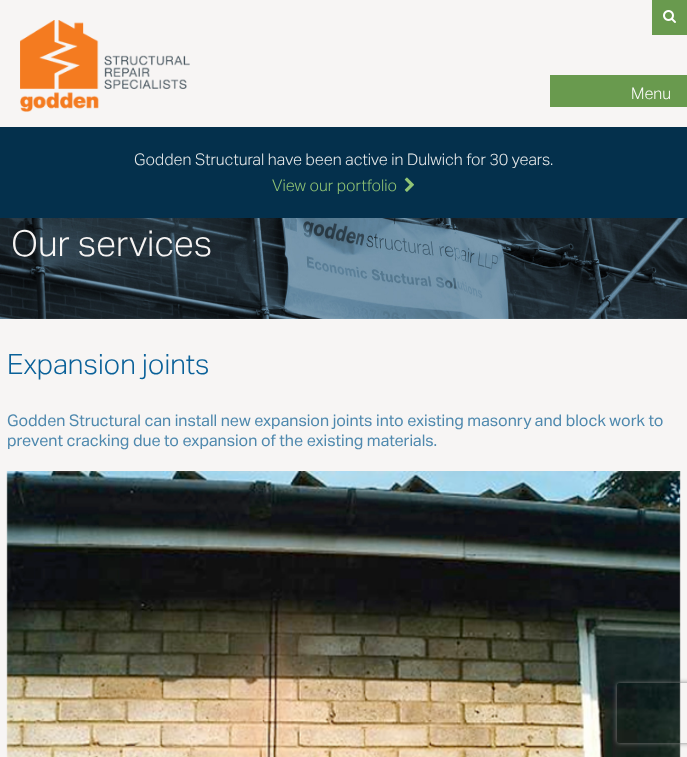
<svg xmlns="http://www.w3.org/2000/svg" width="687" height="757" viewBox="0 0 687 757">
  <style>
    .t1 { font: 300 16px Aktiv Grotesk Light; fill: #fff; }
    .t2 { font: 300 16px Aktiv Grotesk Light; fill: #eceded; }
    .t3 { font: 300 16px Aktiv Grotesk Light; fill: #91c475; }
    .t4 { font: 300 35.75px Aktiv Grotesk Light; fill: #f7f5f4; }
    .t5 { font: 300 28px Aktiv Grotesk Light; fill: #0a6199; }
    .t6 { font: 16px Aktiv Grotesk; fill: #4f89ae; }
  </style>
  <defs>
    <clipPath id="clip1"><path d="M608 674H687V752H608ZM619 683H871C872 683 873 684 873 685V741C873 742 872 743 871 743H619C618 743 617 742 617 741V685C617 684 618 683 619 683Z" clip-rule="evenodd"/></clipPath>
  </defs>
  <rect width="100%" height="100%" fill="#f7f5f4"/>
  <image x="20" y="20" width="170" height="92" href="images/1.png"/>
  <rect x="652" y="0" width="35" height="35" fill="#699a4e"/>
  <image x="663" y="10" width="13" height="13" href="images/2.png"/>
  <rect x="550" y="75" width="137" height="32" fill="#699a4e"/>
  <text x="631" y="99" class="t1">Menu</text>
  <rect x="0" y="127" width="687" height="91" fill="#04304c"/>
  <text x="134" y="165" class="t2">Godden Structural have been active in Dulwich for 30 years.</text>
  <text x="272" y="191" class="t3">View our portfolio</text>
  <image x="404" y="177" width="10" height="15" href="images/3.png"/>
  <image x="0" y="218" width="687" height="101" href="images/4.png"/>
  <text x="11" y="256" class="t4">Our services</text>
  <text x="7" y="374" class="t5">Expansion joints</text>
  <text x="7" y="426" class="t6">Godden Structural can install new expansion joints into existing masonry and block work to</text>
  <text x="7" y="446" class="t6">prevent cracking due to expansion of the existing materials.</text>
  <image x="6" y="471" width="675" height="286" href="images/5.png"/>
  <g clip-path="url(#clip1)">
    <rect x="617" y="683" width="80" height="60" rx="2" fill="#808080" filter="blur(2.5px)"/>
  </g>
</svg>
